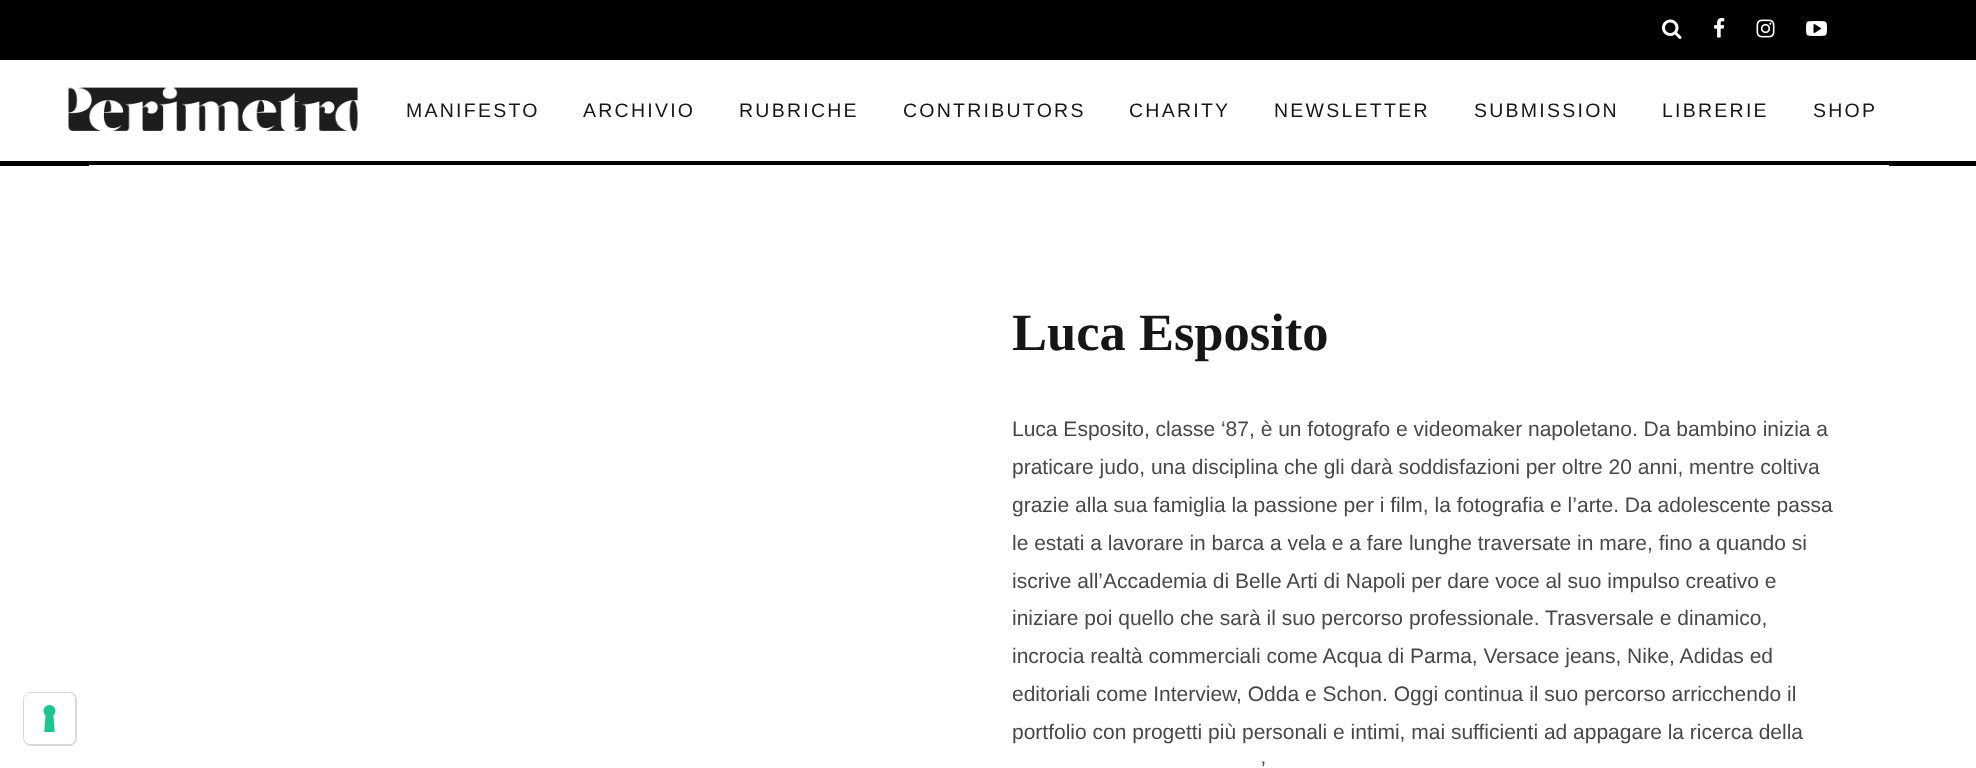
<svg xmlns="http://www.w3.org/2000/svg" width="1976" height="768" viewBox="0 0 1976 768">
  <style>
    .t1 { font: 19.5px Liberation Sans; letter-spacing: 2.25px; fill: #161616; }
    .t2 { font: bold 52.5px Liberation Serif; fill: #161616; }
    .t3 { font: 21px Liberation Sans; fill: #484848; }
  </style>
  <rect width="100%" height="100%" fill="#fff"/>
  <rect x="24" y="693" width="52" height="52" rx="7" fill="none" stroke="#d9d9d9" stroke-width="2"/>
  <rect x="24" y="693" width="51" height="51" rx="6" fill="#fff"/>
  <image x="43" y="705" width="13" height="27" href="images/1.png"/>
  <rect x="0" y="0" width="1976" height="60" fill="#010101"/>
  <image x="1662" y="19" width="20" height="20" href="images/2.png"/>
  <image x="1714" y="18" width="11" height="20" href="images/3.png"/>
  <image x="1756" y="19" width="19" height="19" href="images/4.png"/>
  <image x="1806" y="21" width="21" height="15" href="images/5.png"/>
  <rect x="0" y="161" width="1976" height="5" fill="#000"/>
  <image x="68" y="87" width="290" height="44" href="images/6.png"/>
  <text x="406" y="117" class="t1">MANIFESTO</text>
  <text x="583" y="117" class="t1">ARCHIVIO</text>
  <text x="739" y="117" class="t1">RUBRICHE</text>
  <text x="903" y="117" class="t1">CONTRIBUTORS</text>
  <text x="1129" y="117" class="t1">CHARITY</text>
  <text x="1274" y="117" class="t1">NEWSLETTER</text>
  <text x="1474" y="117" class="t1">SUBMISSION</text>
  <text x="1662" y="117" class="t1">LIBRERIE</text>
  <text x="1813" y="117" class="t1">SHOP</text>
  <rect x="89" y="165" width="1800" height="1" fill="#fff"/>
  <text x="1012" y="350" class="t2">Luca Esposito</text>
  <text x="1012" y="436" class="t3">Luca Esposito, classe ‘87, è un fotografo e videomaker napoletano. Da bambino inizia a</text>
  <text x="1012" y="474" class="t3">praticare judo, una disciplina che gli darà soddisfazioni per oltre 20 anni, mentre coltiva</text>
  <text x="1012" y="512" class="t3">grazie alla sua famiglia la passione per i film, la fotografia e l’arte. Da adolescente passa</text>
  <text x="1012" y="550" class="t3">le estati a lavorare in barca a vela e a fare lunghe traversate in mare, fino a quando si</text>
  <text x="1012" y="588" class="t3">iscrive all’Accademia di Belle Arti di Napoli per dare voce al suo impulso creativo e</text>
  <text x="1012" y="625" class="t3">iniziare poi quello che sarà il suo percorso professionale. Trasversale e dinamico,</text>
  <text x="1012" y="663" class="t3">incrocia realtà commerciali come Acqua di Parma, Versace jeans, Nike, Adidas ed</text>
  <text x="1012" y="701" class="t3">editoriali come Interview, Odda e Schon. Oggi continua il suo percorso arricchendo il</text>
  <text x="1012" y="739" class="t3">portfolio con progetti più personali e intimi, mai sufficienti ad appagare la ricerca della</text>
  <text x="1261" y="776" class="t3">’</text>
</svg>
